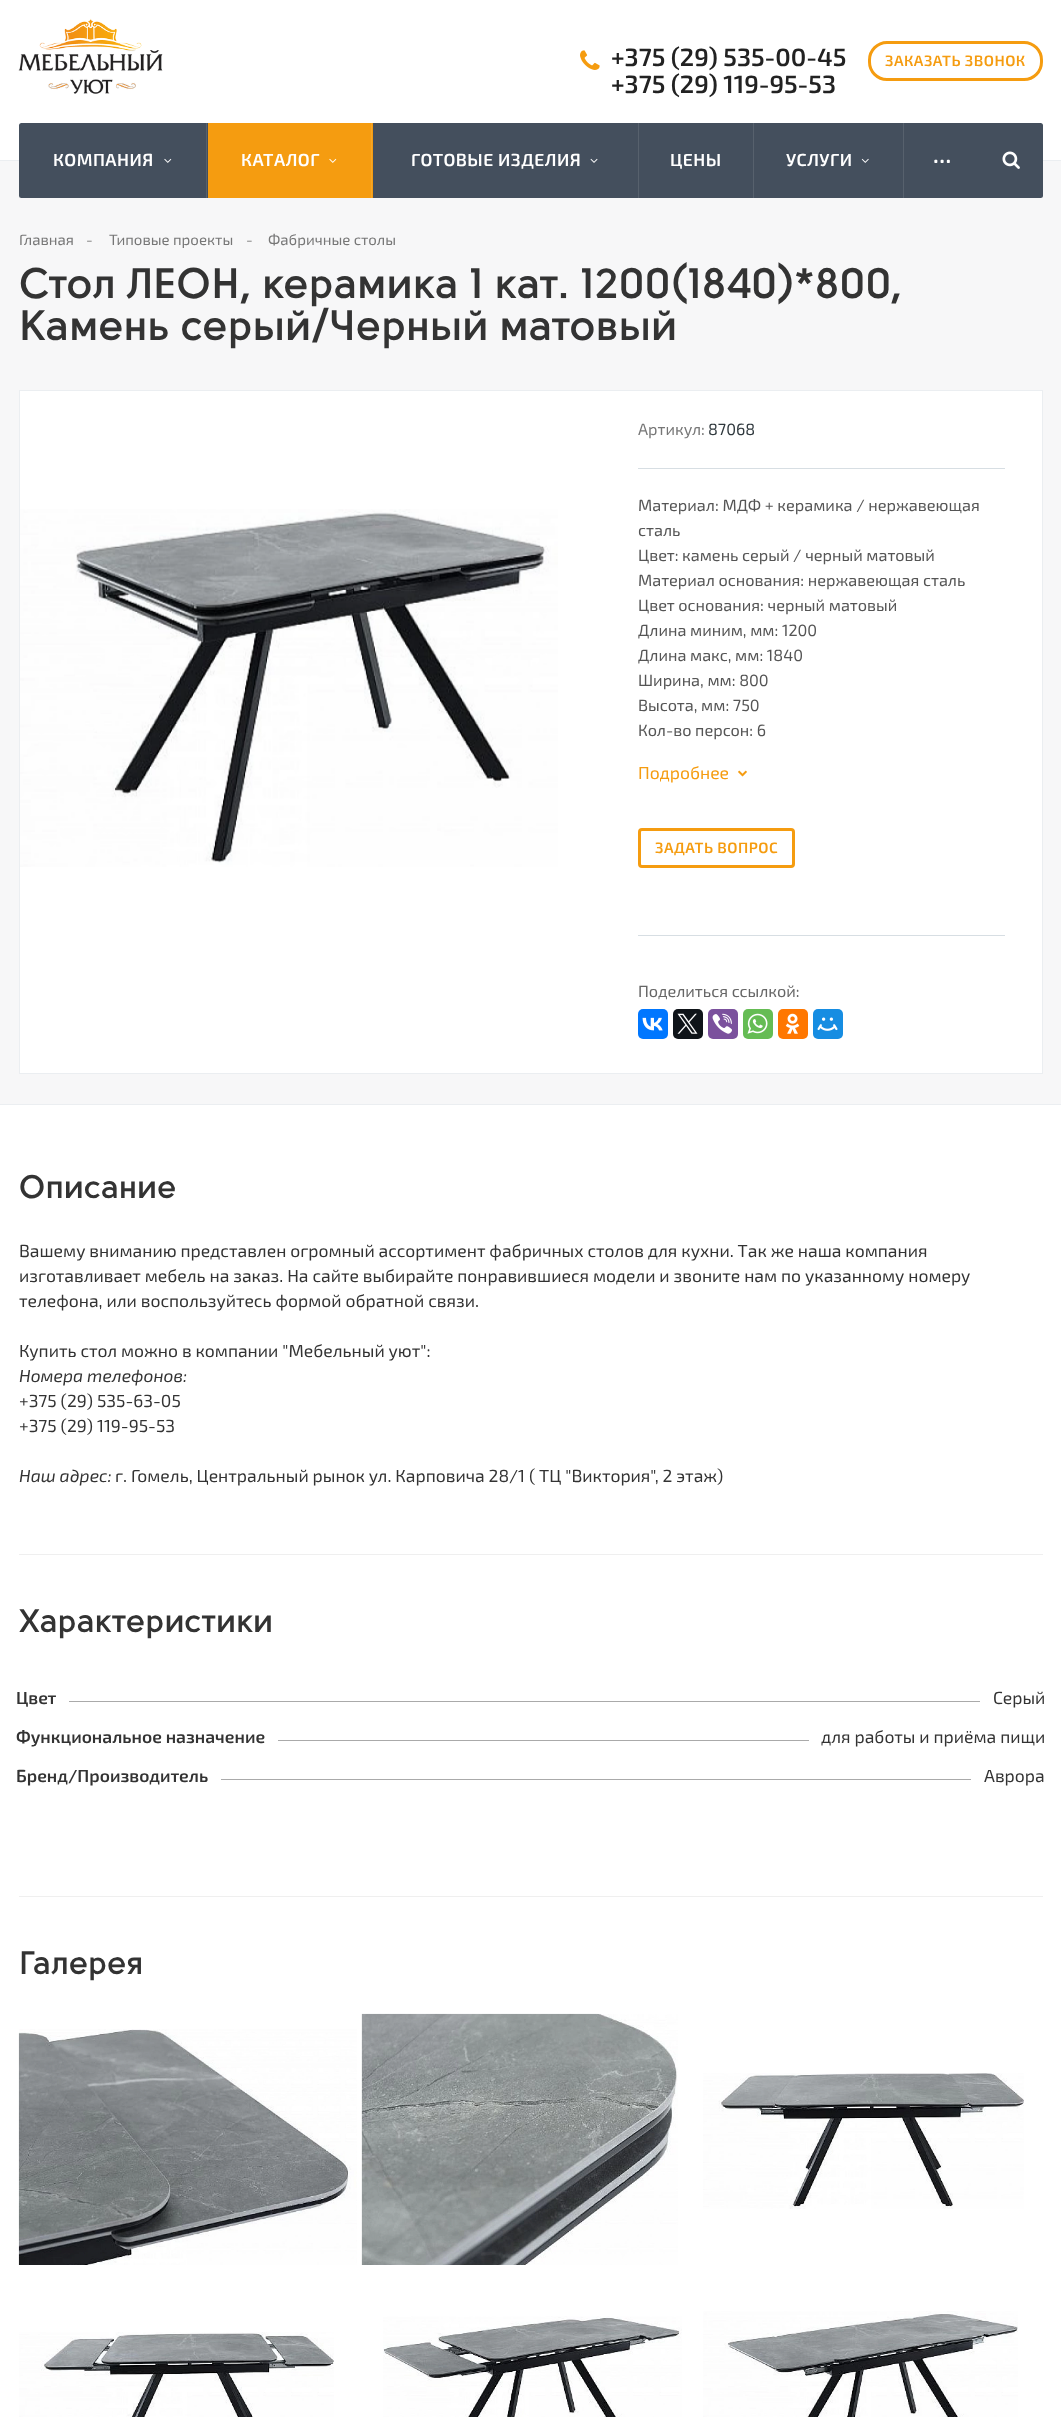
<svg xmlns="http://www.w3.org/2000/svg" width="1061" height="2417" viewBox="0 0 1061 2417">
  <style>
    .t1 { font: 600 25px 'Exo 2'; fill: #222; }
    .t2 { font: 600 15px 'Exo 2'; letter-spacing: 0.5px; fill: #f59c10; }
    .t3 { font: 600 17.5px 'Exo 2'; letter-spacing: 0.5px; fill: #fff; }
    .t4 { font: 600 24px 'Exo 2'; letter-spacing: 0.5px; fill: #fff; }
    .t5 { font: 15px 'Exo 2'; fill: #777; }
    .t6 { font: 15px 'Exo 2'; fill: #888; }
    .t7 { font: 600 42.5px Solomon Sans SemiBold; fill: #333; }
    .t8 { font: 16.25px 'Exo 2'; fill: #777; }
    .t9 { font: 16.25px 'Exo 2'; fill: #2f383d; }
    .t10 { font: 16.25px 'Exo 2'; fill: #555; }
    .t11 { font: 17.5px 'Exo 2'; fill: #f59c10; }
    .t12 { font: 16.25px 'Exo 2'; fill: #666; }
    .t13 { font: 600 32.5px Solomon Sans SemiBold; fill: #333; }
    .t14 { font: 17.5px 'Exo 2'; fill: #333; }
    .t15 { font: italic 17.5px 'Exo 2'; fill: #333; }
    .t16 { font: 600 17.5px 'Exo 2'; fill: #333; }
  </style>
  <rect width="100%" height="100%" fill="#fff"/>
  <image x="18" y="18" width="145" height="76" href="images/1.png"/>
  <image x="580" y="50" width="20" height="20" href="images/2.png"/>
  <text x="611" y="66" class="t1">+375 (29) 535-00-45</text>
  <text x="611" y="93" class="t1">+375 (29) 119-95-53</text>
  <rect x="869.5" y="42.5" width="172" height="37" rx="17.5" fill="none" stroke="#f59c10" stroke-width="3"/>
  <text x="885" y="66" class="t2">ЗАКАЗАТЬ ЗВОНОК</text>
  <rect x="0" y="160" width="1061" height="1" fill="#ebeef1"/>
  <rect x="0" y="161" width="1061" height="943" fill="#f7f7f8"/>
  <rect x="19" y="123" width="1024" height="75" rx="2.5" fill="#444f5d"/>
  <rect x="206" y="123" width="1" height="75" fill="#57616d"/>
  <text x="53" y="166" class="t3">КОМПАНИЯ</text>
  <image x="164" y="158" width="8" height="5" href="images/3.png"/>
  <rect x="208" y="123" width="165" height="75" fill="#f59c10"/>
  <rect x="371" y="123" width="1" height="75" fill="#f6a628"/>
  <text x="241" y="166" class="t3">КАТАЛОГ</text>
  <image x="329" y="158" width="8" height="5" href="images/4.png"/>
  <rect x="638" y="123" width="1" height="75" fill="#57616d"/>
  <text x="411" y="166" class="t3">ГОТОВЫЕ ИЗДЕЛИЯ</text>
  <image x="590" y="158" width="8" height="5" href="images/5.png"/>
  <rect x="753" y="123" width="1" height="75" fill="#57616d"/>
  <text x="670" y="166" class="t3">ЦЕНЫ</text>
  <rect x="903" y="123" width="1" height="75" fill="#57616d"/>
  <text x="786" y="166" class="t3">УСЛУГИ</text>
  <image x="861" y="158" width="8" height="5" href="images/6.png"/>
  <text x="933" y="163" class="t4">...</text>
  <image x="1002" y="151" width="18" height="18" href="images/7.png"/>
  <text x="19" y="245" class="t5">Главная</text>
  <text x="86" y="245" class="t6">-</text>
  <text x="109" y="245" class="t5">Типовые проекты</text>
  <text x="246" y="245" class="t6">-</text>
  <text x="268" y="245" class="t5">Фабричные столы</text>
  <text x="19" y="298" class="t7">Стол ЛЕОН, керамика 1 кат. 1200(1840)*800,</text>
  <text x="19" y="340" class="t7">Камень серый/Черный матовый</text>
  <rect x="0" y="1104" width="1061" height="1" fill="#ebeef1"/>
  <rect x="19.5" y="390.5" width="1023" height="683" fill="#fff" stroke="#ebeef1"/>
  <image x="20" y="509" width="538" height="358" href="images/8.png"/>
  <text x="638" y="435" class="t8">Артикул:</text>
  <text x="708" y="435" class="t9">87068</text>
  <rect x="638" y="468" width="367" height="1" fill="#d7dee3"/>
  <text x="638" y="511" class="t10">Материал: МДФ + керамика / нержавеющая</text>
  <text x="638" y="536" class="t10">сталь</text>
  <text x="638" y="561" class="t10">Цвет: камень серый / черный матовый</text>
  <text x="638" y="586" class="t10">Материал основания: нержавеющая сталь</text>
  <text x="638" y="611" class="t10">Цвет основания: черный матовый</text>
  <text x="638" y="636" class="t10">Длина миним, мм: 1200</text>
  <text x="638" y="661" class="t10">Длина макс, мм: 1840</text>
  <text x="638" y="686" class="t10">Ширина, мм: 800</text>
  <text x="638" y="711" class="t10">Высота, мм: 750</text>
  <text x="638" y="736" class="t10">Кол-во персон: 6</text>
  <text x="638" y="779" class="t11">Подробнее</text>
  <image x="738" y="770" width="9" height="7" href="images/9.png"/>
  <rect x="639.5" y="829.5" width="154" height="37" rx="2.5" fill="none" stroke="#f59c10" stroke-width="3"/>
  <text x="655" y="853" class="t2">ЗАДАТЬ ВОПРОС</text>
  <rect x="638" y="935" width="367" height="1" fill="#d7dee3"/>
  <text x="638" y="997" class="t12">Поделиться ссылкой:</text>
  <rect x="638" y="1009" width="30" height="30" rx="5" fill="#07f"/>
  <image x="642" y="1017" width="21" height="14" href="images/10.png"/>
  <rect x="673" y="1009" width="30" height="30" rx="5" fill="#0f1419"/>
  <image x="677" y="1013" width="21" height="21" href="images/11.png"/>
  <rect x="708" y="1009" width="30" height="30" rx="5" fill="#7b519d"/>
  <image x="712" y="1013" width="20" height="21" href="images/12.png"/>
  <rect x="743" y="1009" width="30" height="30" rx="5" fill="#65bc54"/>
  <image x="747" y="1013" width="21" height="21" href="images/13.png"/>
  <rect x="778" y="1009" width="30" height="30" rx="5" fill="#f70"/>
  <image x="785" y="1013" width="15" height="21" href="images/14.png"/>
  <rect x="813" y="1009" width="30" height="30" rx="5" fill="#168de2"/>
  <image x="817" y="1017" width="21" height="14" href="images/15.png"/>
  <text x="19" y="1198" class="t13">Описание</text>
  <text x="19" y="1257" class="t14">Вашему вниманию представлен огромный ассортимент фабричных столов для кухни. Так же наша компания</text>
  <text x="19" y="1282" class="t14">изготавливает мебель на заказ. На сайте выбирайте понравившиеся модели и звоните нам по указанному номеру</text>
  <text x="19" y="1307" class="t14">телефона, или воспользуйтесь формой обратной связи.</text>
  <text x="19" y="1357" class="t14">Купить стол можно в компании "Мебельный уют":</text>
  <text x="19" y="1382" class="t15">Номера телефонов:</text>
  <text x="19" y="1407" class="t14">+375 (29) 535-63-05</text>
  <text x="19" y="1432" class="t14">+375 (29) 119-95-53</text>
  <text x="19" y="1482" class="t15">Наш адрес:</text>
  <text x="115" y="1482" class="t14">г. Гомель, Центральный рынок ул. Карповича 28/1 ( ТЦ "Виктория", 2 этаж)</text>
  <rect x="19" y="1554" width="1024" height="1" fill="#efefef"/>
  <text x="19" y="1632" class="t13">Характеристики</text>
  <text x="16" y="1704" class="t16">Цвет</text>
  <rect x="69" y="1701" width="911" height="1" fill="#aaa"/>
  <text x="993" y="1704" class="t14">Серый</text>
  <text x="16" y="1743" class="t16">Функциональное назначение</text>
  <rect x="278" y="1740" width="531" height="1" fill="#aaa"/>
  <text x="821" y="1743" class="t14">для работы и приёма пищи</text>
  <text x="16" y="1782" class="t16">Бренд/Производитель</text>
  <rect x="221" y="1779" width="750" height="1" fill="#aaa"/>
  <text x="984" y="1782" class="t14">Аврора</text>
  <rect x="19" y="1896" width="1024" height="1" fill="#efefef"/>
  <text x="19" y="1974" class="t13">Галерея</text>
  <image x="18" y="2029" width="339" height="236" href="images/16.png"/>
  <image x="361" y="2013" width="317" height="252" href="images/17.png"/>
  <image x="703" y="2073" width="321" height="136" href="images/18.png"/>
  <image x="19" y="2332" width="315" height="85" href="images/19.png"/>
  <image x="383" y="2316" width="299" height="101" href="images/20.png"/>
  <image x="703" y="2311" width="315" height="106" href="images/21.png"/>
</svg>
